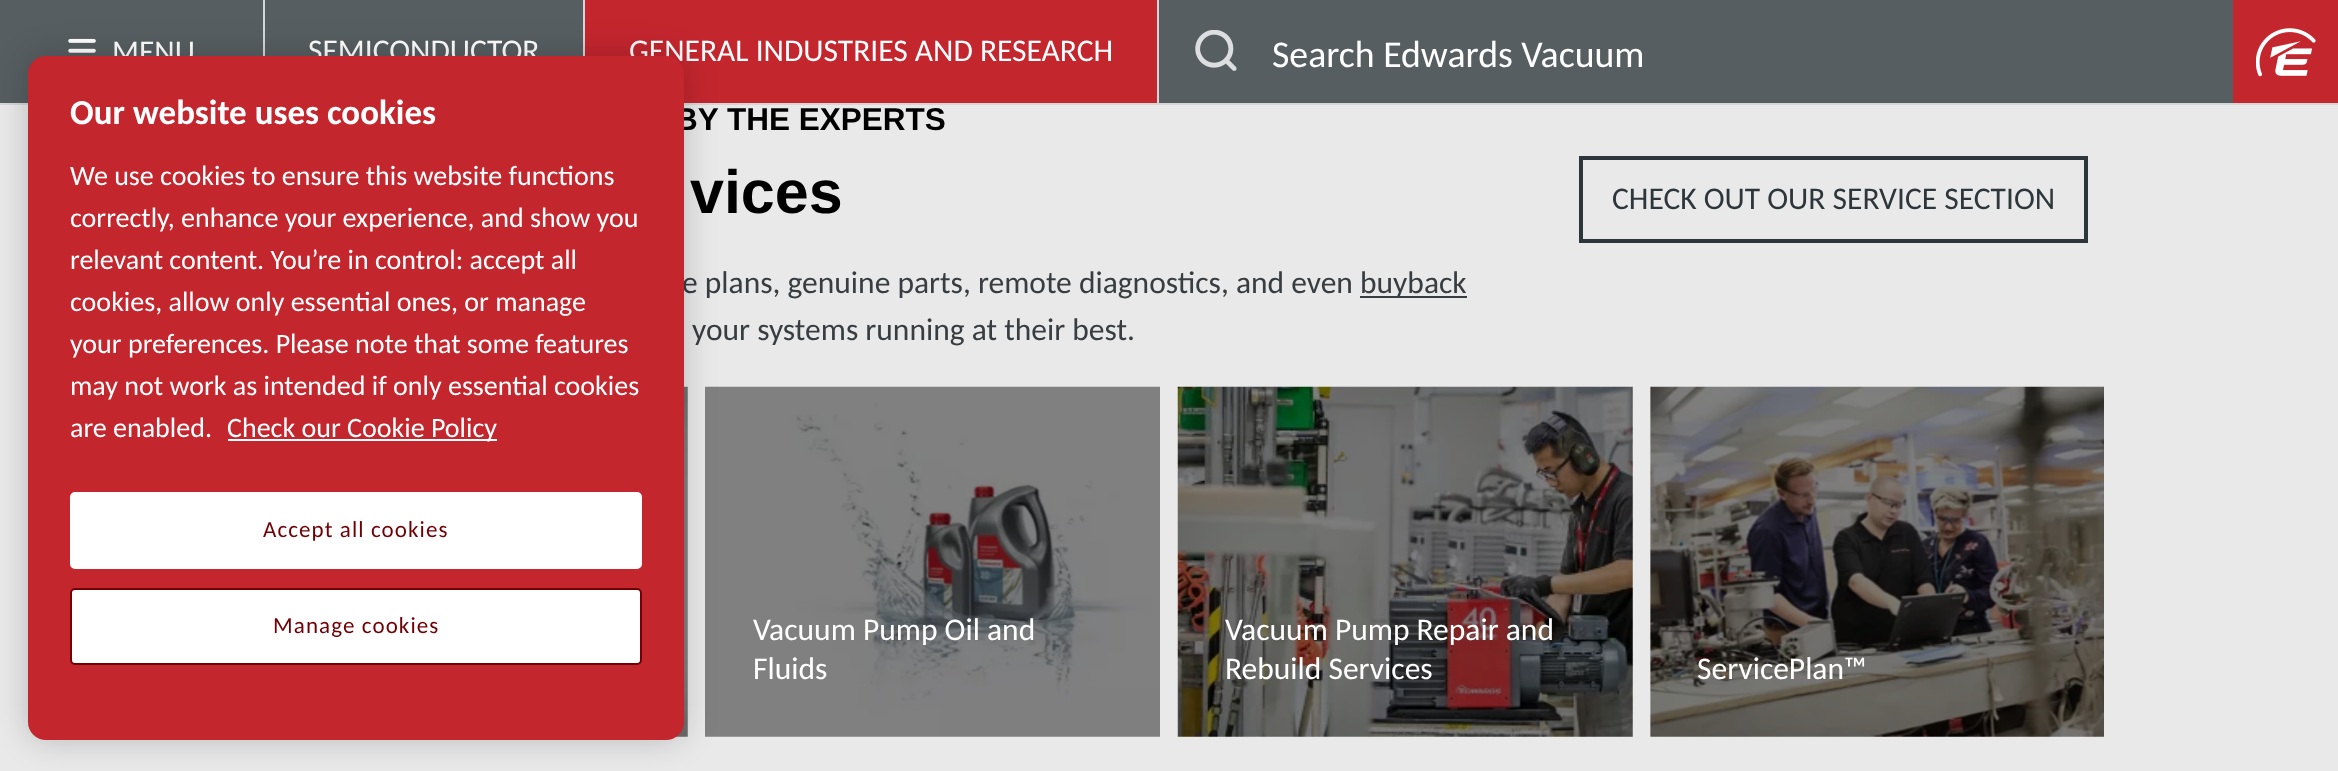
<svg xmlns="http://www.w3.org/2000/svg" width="2338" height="771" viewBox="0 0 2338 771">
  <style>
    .t1 { font: 31.5px Carlito; fill: #fff; }
    .t2 { font: 37.75px Carlito; fill: #fff; }
    .t3 { font: bold 31.5px Liberation Sans; fill: #000; }
    .t4 { font: bold 61px Liberation Sans; fill: #000; }
    .t5 { font: 31.5px Carlito; fill: #373d41; }
    .t6 { font: 31.5px Carlito; fill: #2d363a; }
    .t7 { font: bold 35px Carlito; fill: #fff; }
    .t8 { font: 28px Carlito; fill: #fff; }
    .t9 { font: 23px Carlito; letter-spacing: 1.1px; fill: #700006; }
  </style>
  <rect width="100%" height="100%" fill="#e9e9e9"/>
  <rect x="0" y="0" width="2233" height="103" fill="#575e61"/>
  <rect x="0" y="103" width="2338" height="2" fill="#d4d6d7"/>
  <image x="68" y="38" width="28" height="15" href="images/1.png"/>
  <text x="112" y="62" class="t1">MENU</text>
  <rect x="583" y="0" width="2" height="56" fill="#d4d6d7"/>
  <rect x="263" y="0" width="2" height="56" fill="#d4d6d7"/>
  <text x="308" y="61" class="t1">SEMICONDUCTOR</text>
  <rect x="585" y="0" width="572" height="103" fill="#c4262e"/>
  <rect x="1157" y="0" width="2" height="103" fill="#d4d6d7"/>
  <text x="629" y="61" class="t1">GENERAL INDUSTRIES AND RESEARCH</text>
  <image x="1195" y="30" width="42" height="41" href="images/2.png"/>
  <text x="1272" y="67" class="t2">Search Edwards Vacuum</text>
  <rect x="2233" y="0" width="105" height="103" fill="#c4262e"/>
  <image x="2256" y="28" width="60" height="49" href="images/3.png"/>
  <text x="675" y="130" class="t3">BY THE EXPERTS</text>
  <text x="690" y="213" class="t4">vices</text>
  <text x="682" y="293" class="t5">e plans, genuine parts, remote diagnostics, and even</text>
  <rect x="1360" y="296" width="107" height="2" fill="#373d41"/>
  <text x="1360" y="293" class="t5">buyback</text>
  <text x="692" y="340" class="t5">your systems running at their best.</text>
  <rect x="1581" y="158" width="505" height="83" fill="none" stroke="#2d363a" stroke-width="4"/>
  <text x="1612" y="209" class="t6">CHECK OUT OUR SERVICE SECTION</text>
  <image x="676" y="386" width="12" height="351" href="images/4.png"/>
  <image x="705" y="386" width="455" height="351" href="images/5.png"/>
  <text x="753" y="640" class="t1">Vacuum Pump Oil and</text>
  <text x="753" y="679" class="t1">Fluids</text>
  <image x="1177" y="386" width="456" height="351" href="images/6.png"/>
  <text x="1225" y="640" class="t1">Vacuum Pump Repair and</text>
  <text x="1225" y="679" class="t1">Rebuild Services</text>
  <image x="1650" y="386" width="454" height="351" href="images/7.png"/>
  <text x="1697" y="679" class="t1">ServicePlan™</text>
  <rect x="28" y="56" width="656" height="684" rx="18" fill="#00000033" filter="blur(16px)"/>
  <rect x="28" y="56" width="656" height="684" rx="18" fill="#c4262e"/>
  <text x="70" y="124" class="t7">Our website uses cookies</text>
  <text x="70" y="185" class="t8">We use cookies to ensure this website functions</text>
  <text x="70" y="227" class="t8">correctly, enhance your experience, and show you</text>
  <text x="70" y="269" class="t8">relevant content. You’re in control: accept all</text>
  <text x="70" y="311" class="t8">cookies, allow only essential ones, or manage</text>
  <text x="70" y="353" class="t8">your preferences. Please note that some features</text>
  <text x="70" y="395" class="t8">may not work as intended if only essential cookies</text>
  <text x="70" y="437" class="t8">are enabled.</text>
  <rect x="228" y="439" width="269" height="2" fill="#fff"/>
  <text x="227" y="437" class="t8">Check our Cookie Policy</text>
  <rect x="71" y="493" width="570" height="75" rx="4" fill="#fff" stroke="#fff" stroke-width="2"/>
  <text x="263" y="537" class="t9">Accept all cookies</text>
  <rect x="71" y="589" width="570" height="75" rx="4" fill="#fff" stroke="#700006" stroke-width="2"/>
  <text x="273" y="633" class="t9">Manage cookies</text>
</svg>
